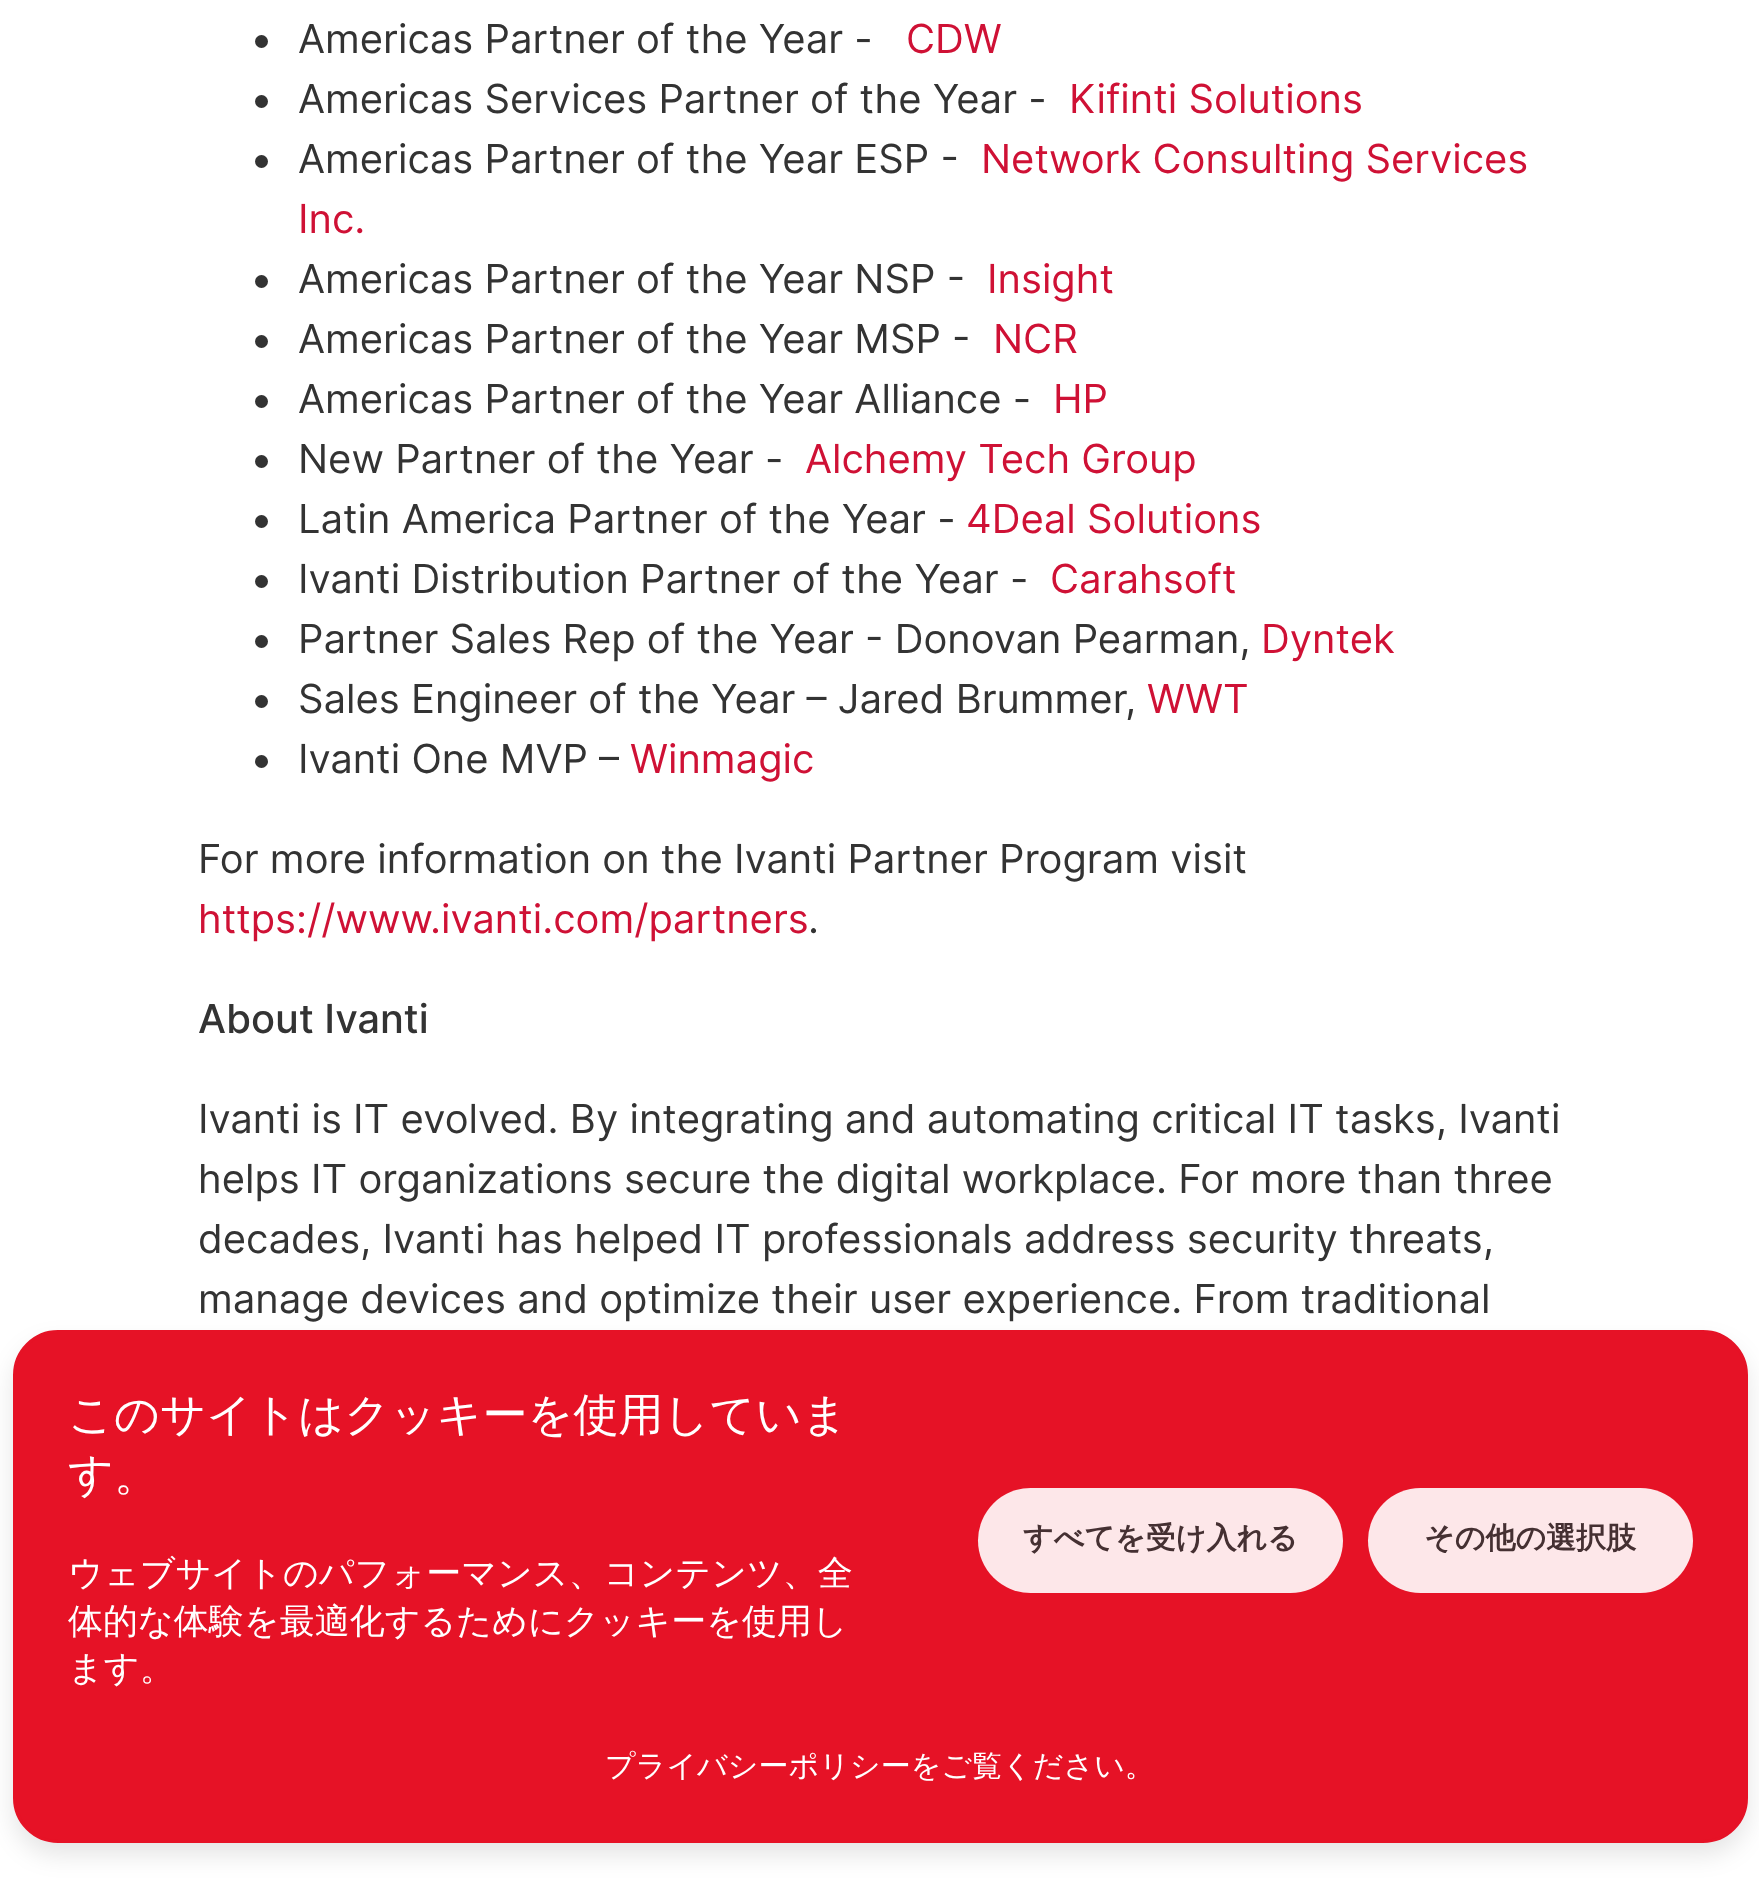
<svg xmlns="http://www.w3.org/2000/svg" width="1759" height="1896" viewBox="0 0 1759 1896">
  <style>
    .t1 { font: 40px Inter; fill: #333; }
    .t2 { font: 40px Inter; fill: #cf1135; }
    .t3 { font: 500 40px Inter; fill: #333; }
    .t4 { font: 500 45px WenQuanYi Zen Hei; fill: #fff; }
    .t5 { font: 500 35px WenQuanYi Zen Hei; fill: #fff; }
    .t6 { font: bold 30px WenQuanYi Zen Hei; fill: #453032; }
    .t7 { font: 500 30px WenQuanYi Zen Hei; fill: #fff; }
  </style>
  <rect width="100%" height="100%" fill="#fff"/>
  <circle cx="261.5" cy="41.5" r="6.5" fill="#333"/>
  <text x="298" y="53" class="t1">Americas Partner of the Year -</text>
  <text x="906" y="53" class="t2">CDW</text>
  <circle cx="261.5" cy="101.5" r="6.5" fill="#333"/>
  <text x="298" y="113" class="t1">Americas Services Partner of the Year -</text>
  <text x="1069" y="113" class="t2">Kifinti Solutions</text>
  <circle cx="261.5" cy="161.5" r="6.5" fill="#333"/>
  <text x="298" y="173" class="t1">Americas Partner of the Year ESP -</text>
  <text x="981" y="173" class="t2">Network Consulting Services</text>
  <text x="298" y="233" class="t2">Inc.</text>
  <circle cx="261.5" cy="281.5" r="6.5" fill="#333"/>
  <text x="298" y="293" class="t1">Americas Partner of the Year NSP -</text>
  <text x="987" y="293" class="t2">Insight</text>
  <circle cx="261.5" cy="341.5" r="6.5" fill="#333"/>
  <text x="298" y="353" class="t1">Americas Partner of the Year MSP -</text>
  <text x="993" y="353" class="t2">NCR</text>
  <circle cx="261.5" cy="401.5" r="6.5" fill="#333"/>
  <text x="298" y="413" class="t1">Americas Partner of the Year Alliance -</text>
  <text x="1053" y="413" class="t2">HP</text>
  <circle cx="261.5" cy="461.5" r="6.5" fill="#333"/>
  <text x="298" y="473" class="t1">New Partner of the Year -</text>
  <text x="805" y="473" class="t2">Alchemy Tech Group</text>
  <circle cx="261.5" cy="521.5" r="6.5" fill="#333"/>
  <text x="298" y="533" class="t1">Latin America Partner of the Year -</text>
  <text x="966" y="533" class="t2">4Deal Solutions</text>
  <circle cx="261.5" cy="581.5" r="6.5" fill="#333"/>
  <text x="298" y="593" class="t1">Ivanti Distribution Partner of the Year -</text>
  <text x="1050" y="593" class="t2">Carahsoft</text>
  <circle cx="261.5" cy="641.5" r="6.5" fill="#333"/>
  <text x="298" y="653" class="t1">Partner Sales Rep of the Year - Donovan Pearman,</text>
  <text x="1261" y="653" class="t2">Dyntek</text>
  <circle cx="261.5" cy="701.5" r="6.5" fill="#333"/>
  <text x="298" y="713" class="t1">Sales Engineer of the Year – Jared Brummer,</text>
  <text x="1147" y="713" class="t2">WWT</text>
  <circle cx="261.5" cy="761.5" r="6.5" fill="#333"/>
  <text x="298" y="773" class="t1">Ivanti One MVP –</text>
  <text x="630" y="773" class="t2">Winmagic</text>
  <text x="198" y="873" class="t1">For more information on the Ivanti Partner Program visit</text>
  <text x="198" y="933" class="t2">https://www.ivanti.com/partners</text>
  <text x="808" y="933" class="t1">.</text>
  <text x="198" y="1033" class="t3">About Ivanti</text>
  <text x="198" y="1133" class="t1">Ivanti is IT evolved. By integrating and automating critical IT tasks, Ivanti</text>
  <text x="198" y="1193" class="t1">helps IT organizations secure the digital workplace. For more than three</text>
  <text x="198" y="1253" class="t1">decades, Ivanti has helped IT professionals address security threats,</text>
  <text x="198" y="1313" class="t1">manage devices and optimize their user experience. From traditional</text>
  <rect x="13" y="1343" width="1735" height="512" rx="45" fill="#0000001a" filter="blur(12.5px)"/>
  <rect x="14.5" y="1331.5" width="1732" height="510" rx="43.5" fill="#e61226" stroke="#e61226" stroke-width="3"/>
  <text x="68" y="1430" class="t4">このサイトはクッキーを使用していま</text>
  <text x="68" y="1490" class="t4">す。</text>
  <text x="68" y="1585" class="t5">ウェブサイトのパフォーマンス、コンテンツ、全</text>
  <text x="68" y="1633" class="t5">体的な体験を最適化するためにクッキーを使用し</text>
  <text x="68" y="1680" class="t5">ます。</text>
  <rect x="978" y="1488" width="365" height="105" rx="52.5" fill="#fde7e9"/>
  <text x="1023" y="1548" class="t6">すべてを受け入れる</text>
  <rect x="1368" y="1488" width="325" height="105" rx="52.5" fill="#fde7e9"/>
  <text x="1424" y="1548" class="t6">その他の選択肢</text>
  <text x="605" y="1776" class="t7">プライバシーポリシーをご覧ください。</text>
</svg>
